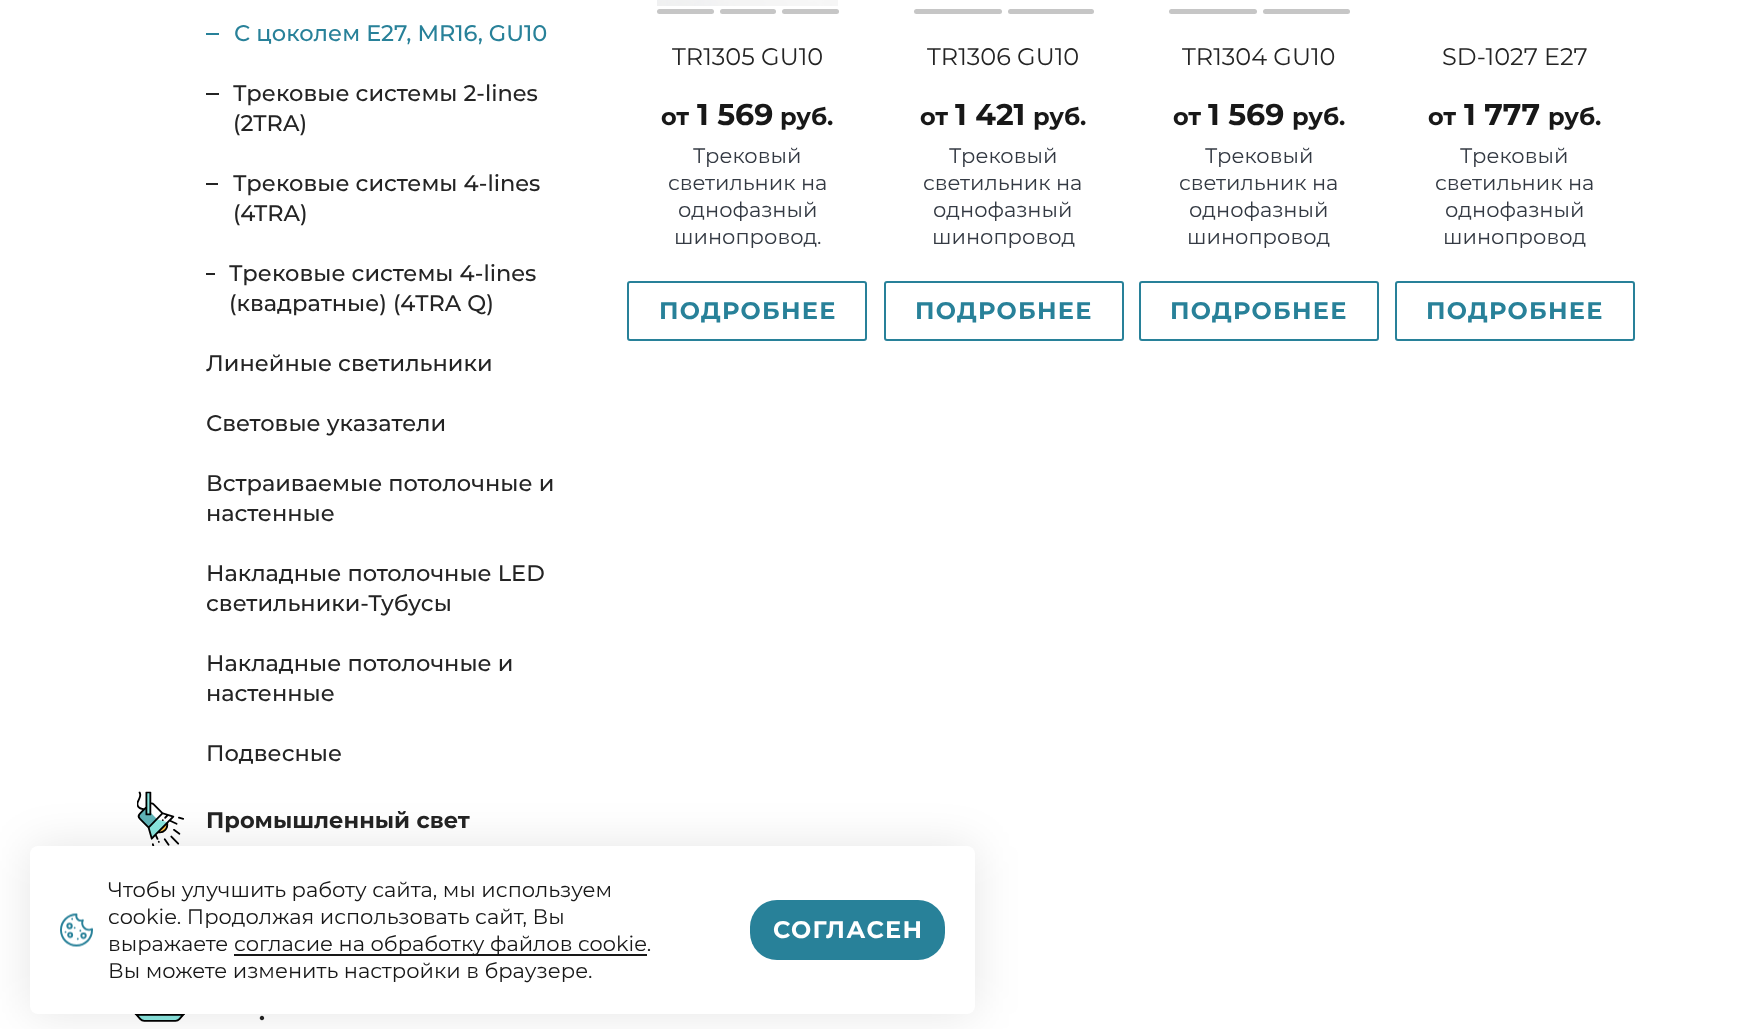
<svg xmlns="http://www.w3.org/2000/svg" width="1750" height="1029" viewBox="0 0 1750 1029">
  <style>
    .t1 { font: 500 22.5px Montserrat; fill: #288199; }
    .t2 { font: 500 22.5px Montserrat; fill: #242424; }
    .t3 { font: bold 22.5px Montserrat; fill: #242424; }
    .t4 { font: 24px Montserrat; fill: #242424; }
    .t5 { font: bold 24px Montserrat; fill: #181818; }
    .t6 { font: bold 30px Montserrat; fill: #181818; }
    .t7 { font: 21px Montserrat; fill: #343a43; }
    .t8 { font: bold 24px Montserrat; letter-spacing: 1.25px; fill: #288199; }
    .t9 { font: 21px Montserrat; fill: #181818; }
    .t10 { font: bold 24px Montserrat; letter-spacing: 1.25px; fill: #fff; }
  </style>
  <rect width="100%" height="100%" fill="#fff"/>
  <rect x="206" y="33" width="13" height="2" fill="#288199"/>
  <text x="234" y="41" class="t1">С цоколем E27, MR16, GU10</text>
  <rect x="206" y="93" width="13" height="2" fill="#242424"/>
  <text x="233" y="101" class="t2">Трековые системы 2-lines</text>
  <text x="233" y="131" class="t2">(2TRA)</text>
  <rect x="206" y="183" width="12" height="2" fill="#242424"/>
  <text x="233" y="191" class="t2">Трековые системы 4-lines</text>
  <text x="233" y="221" class="t2">(4TRA)</text>
  <rect x="206" y="273" width="9" height="2" fill="#242424"/>
  <text x="229" y="281" class="t2">Трековые системы 4-lines</text>
  <text x="229" y="311" class="t2">(квадратные) (4TRA Q)</text>
  <text x="206" y="371" class="t2">Линейные светильники</text>
  <text x="206" y="431" class="t2">Световые указатели</text>
  <text x="206" y="491" class="t2">Встраиваемые потолочные и</text>
  <text x="206" y="521" class="t2">настенные</text>
  <text x="206" y="581" class="t2">Накладные потолочные LED</text>
  <text x="206" y="611" class="t2">светильники-Тубусы</text>
  <text x="206" y="671" class="t2">Накладные потолочные и</text>
  <text x="206" y="701" class="t2">настенные</text>
  <text x="206" y="761" class="t2">Подвесные</text>
  <image x="137" y="791" width="47" height="55" href="images/1.png"/>
  <text x="206" y="828" class="t3">Промышленный свет</text>
  <image x="134" y="1014" width="51" height="8" href="images/2.png"/>
  <text x="259" y="1020" class="t3">.</text>
  <image x="657" y="0" width="181" height="6" href="images/3.png"/>
  <rect x="657" y="9" width="57" height="5" rx="2.5" fill="#c6c6c6"/>
  <rect x="720" y="9" width="56" height="5" rx="2.5" fill="#c6c6c6"/>
  <rect x="782" y="9" width="57" height="5" rx="2.5" fill="#c6c6c6"/>
  <text x="672" y="65" class="t4">TR1305 GU10</text>
  <text x="661" y="125" class="t5">от</text>
  <text x="697" y="125" class="t6">1 569</text>
  <text x="780" y="125" class="t5">руб.</text>
  <text x="693" y="163" class="t7">Трековый</text>
  <text x="668" y="190" class="t7">светильник на</text>
  <text x="678" y="217" class="t7">однофазный</text>
  <text x="674" y="244" class="t7">шинопровод.</text>
  <rect x="628" y="282" width="238" height="58" rx="2" fill="none" stroke="#288199" stroke-width="2"/>
  <text x="659" y="319" class="t8">ПОДРОБНЕЕ</text>
  <rect x="914" y="9" width="88" height="5" rx="2.5" fill="#c6c6c6"/>
  <rect x="1008" y="9" width="86" height="5" rx="2.5" fill="#c6c6c6"/>
  <text x="927" y="65" class="t4">TR1306 GU10</text>
  <text x="920" y="125" class="t5">от</text>
  <text x="955" y="125" class="t6">1 421</text>
  <text x="1033" y="125" class="t5">руб.</text>
  <text x="949" y="163" class="t7">Трековый</text>
  <text x="923" y="190" class="t7">светильник на</text>
  <text x="933" y="217" class="t7">однофазный</text>
  <text x="932" y="244" class="t7">шинопровод</text>
  <rect x="885" y="282" width="238" height="58" rx="2" fill="none" stroke="#288199" stroke-width="2"/>
  <text x="915" y="319" class="t8">ПОДРОБНЕЕ</text>
  <rect x="1169" y="9" width="88" height="5" rx="2.5" fill="#c6c6c6"/>
  <rect x="1263" y="9" width="87" height="5" rx="2.5" fill="#c6c6c6"/>
  <text x="1182" y="65" class="t4">TR1304 GU10</text>
  <text x="1173" y="125" class="t5">от</text>
  <text x="1208" y="125" class="t6">1 569</text>
  <text x="1292" y="125" class="t5">руб.</text>
  <text x="1205" y="163" class="t7">Трековый</text>
  <text x="1179" y="190" class="t7">светильник на</text>
  <text x="1189" y="217" class="t7">однофазный</text>
  <text x="1187" y="244" class="t7">шинопровод</text>
  <rect x="1140" y="282" width="238" height="58" rx="2" fill="none" stroke="#288199" stroke-width="2"/>
  <text x="1170" y="319" class="t8">ПОДРОБНЕЕ</text>
  <text x="1442" y="65" class="t4">SD-1027 E27</text>
  <text x="1428" y="125" class="t5">от</text>
  <text x="1464" y="125" class="t6">1 777</text>
  <text x="1548" y="125" class="t5">руб.</text>
  <text x="1460" y="163" class="t7">Трековый</text>
  <text x="1435" y="190" class="t7">светильник на</text>
  <text x="1445" y="217" class="t7">однофазный</text>
  <text x="1443" y="244" class="t7">шинопровод</text>
  <rect x="1396" y="282" width="238" height="58" rx="2" fill="none" stroke="#288199" stroke-width="2"/>
  <text x="1426" y="319" class="t8">ПОДРОБНЕЕ</text>
  <rect x="30" y="846" width="945" height="168" rx="8" fill="#0000001a" filter="blur(22.5px)"/>
  <rect x="30" y="846" width="945" height="168" rx="8" fill="#fff"/>
  <image x="60" y="913" width="33" height="34" href="images/4.png"/>
  <text x="108" y="897" class="t9">Чтобы улучшить работу сайта, мы используем</text>
  <text x="108" y="924" class="t9">cookie. Продолжая использовать сайт, Вы</text>
  <text x="108" y="951" class="t9">выражаете</text>
  <rect x="234" y="954" width="413" height="2" fill="#181818"/>
  <text x="234" y="951" class="t9">согласие на обработку файлов cookie.</text>
  <text x="108" y="978" class="t9">Вы можете изменить настройки в браузере.</text>
  <rect x="750" y="900" width="195" height="60" rx="27" fill="#288199"/>
  <text x="773" y="938" class="t10">СОГЛАСЕН</text>
</svg>
